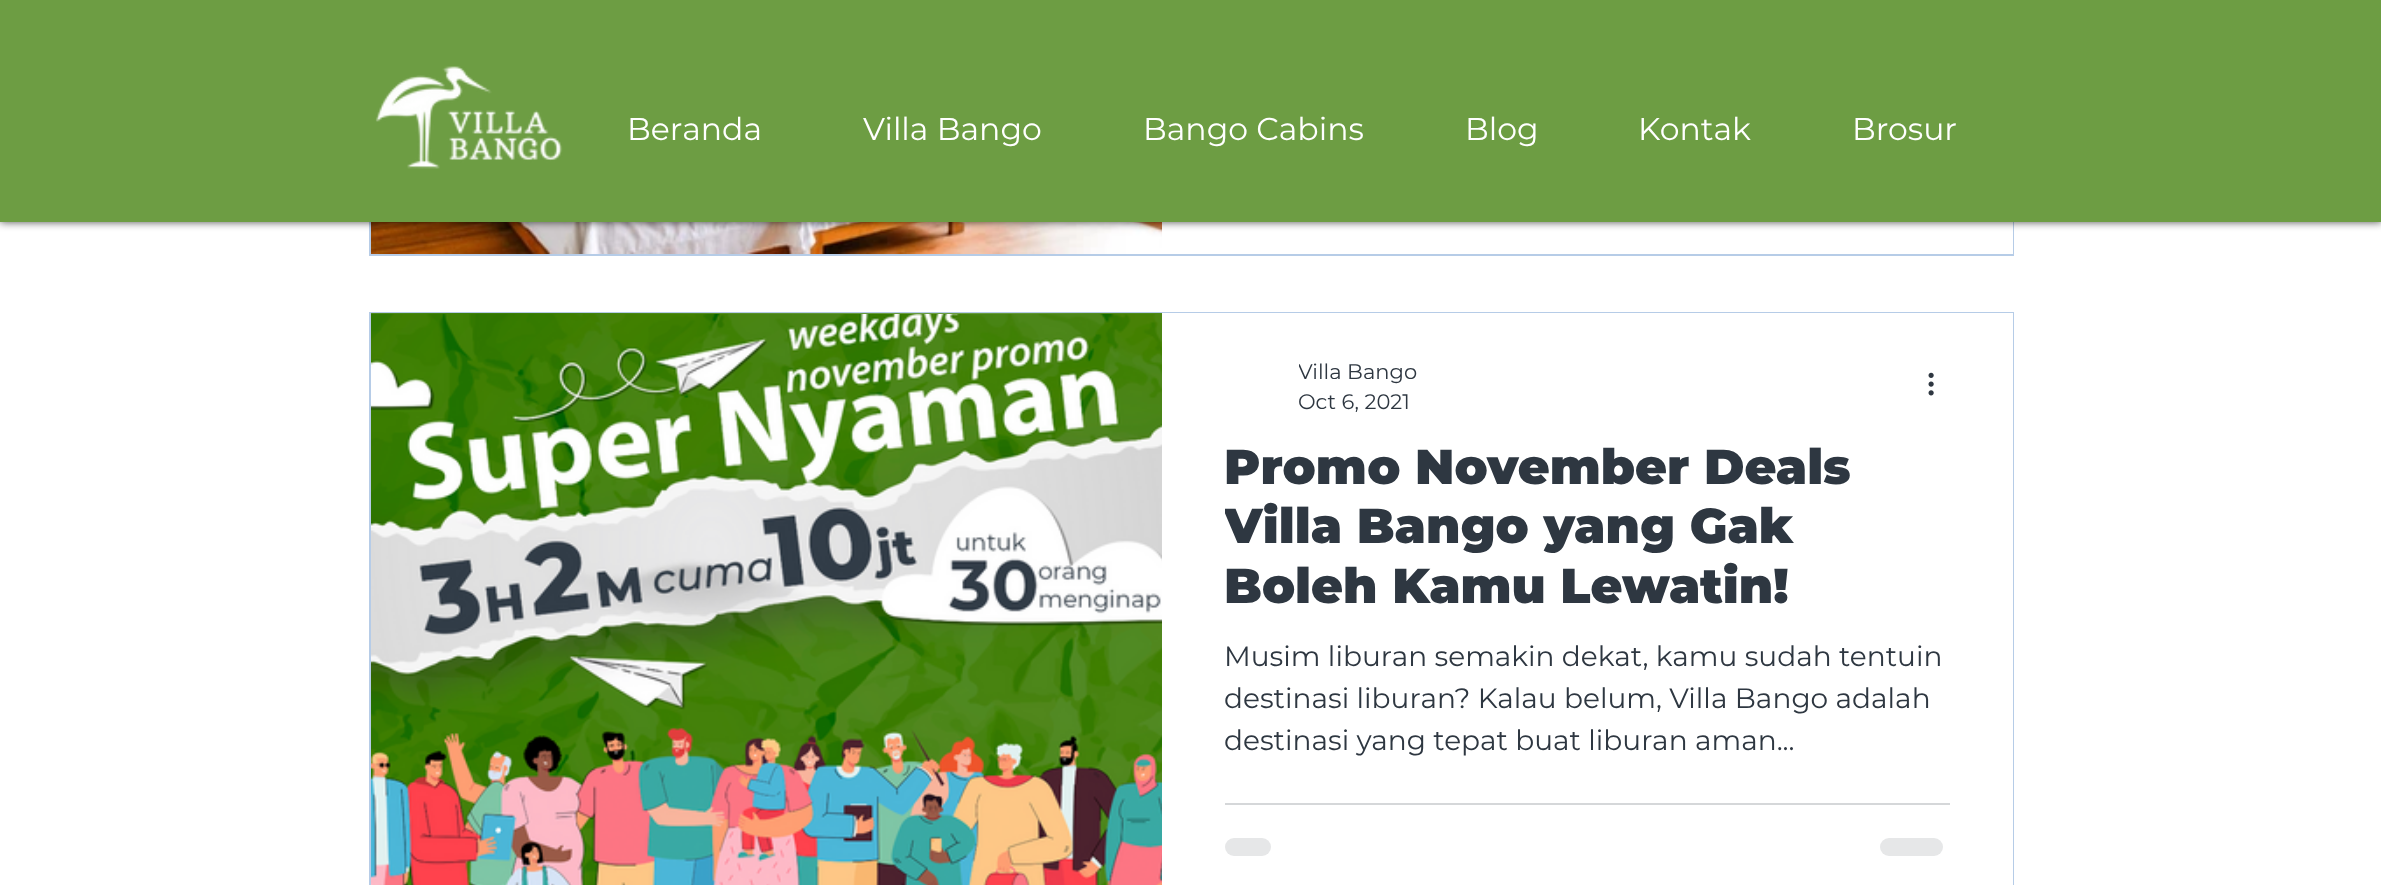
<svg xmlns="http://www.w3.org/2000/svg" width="2381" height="885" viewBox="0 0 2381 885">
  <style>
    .t1 { font: 31.5px Montserrat; fill: #fff; }
    .t2 { font: 21px Montserrat; fill: #2e3741; }
    .t3 { font: 100 49px Montserrat; fill: #2e3741; }
    .t4 { font: 28px Montserrat; fill: #2e3741; }
  </style>
  <defs>
    <clipPath id="clip1"><rect x="1299" y="359" width="119" height="26"/></clipPath>
    <clipPath id="clip2"><rect x="1225" y="438" width="725" height="178"/></clipPath>
  </defs>
  <rect width="100%" height="100%" fill="#fff"/>
  <rect x="370" y="-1" width="1643" height="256" fill="none" stroke="#b6cce7" stroke-width="2"/>
  <image x="371" y="222" width="791" height="32" href="images/2.png"/>
  <rect x="2012" y="222" width="1" height="32" fill="#fff"/>
  <rect x="0" y="0" width="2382" height="222" fill="#000000b3" filter="blur(4.5px)"/>
  <rect x="0" y="0" width="2381" height="222" fill="#6d9d43"/>
  <image x="375" y="66" width="188" height="103" href="images/1.png"/>
  <text x="627" y="140" class="t1">Beranda</text>
  <text x="863" y="140" class="t1">Villa Bango</text>
  <text x="1143" y="140" class="t1">Bango Cabins</text>
  <text x="1465" y="140" class="t1">Blog</text>
  <text x="1638" y="140" class="t1">Kontak</text>
  <text x="1852" y="140" class="t1">Brosur</text>
  <rect x="370" y="313" width="1643" height="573" fill="none" stroke="#b6cce7" stroke-width="2"/>
  <image x="371" y="313" width="791" height="1" href="images/3.png"/>
  <image x="371" y="314" width="791" height="571" href="images/4.png"/>
  <rect x="1162" y="313" width="851" height="572" fill="#fff"/>
  <g clip-path="url(#clip1)">
    <text x="1298" y="379" class="t2">Villa Bango</text>
  </g>
  <text x="1298" y="409" class="t2">Oct 6, 2021</text>
  <image x="1928" y="372" width="6" height="24" href="images/5.png"/>
  <text x="1224" y="484" class="t3">Promo November Deals</text>
  <g clip-path="url(#clip2)">
    <text x="1224" y="543" class="t3">Villa Bango yang Gak</text>
  </g>
  <text x="1224" y="603" class="t3">Boleh Kamu Lewatin!</text>
  <text x="1224" y="666" class="t4">Musim liburan semakin dekat, kamu sudah tentuin</text>
  <text x="1224" y="708" class="t4">destinasi liburan? Kalau belum, Villa Bango adalah</text>
  <text x="1224" y="750" class="t4">destinasi yang tepat buat liburan aman...</text>
  <rect x="1225" y="803" width="725" height="2" fill="#d5d7d9"/>
  <rect x="1225" y="838" width="46" height="18" rx="9" fill="#e6e7e8"/>
  <rect x="1880" y="838" width="63" height="18" rx="9" fill="#e6e7e8"/>
</svg>
